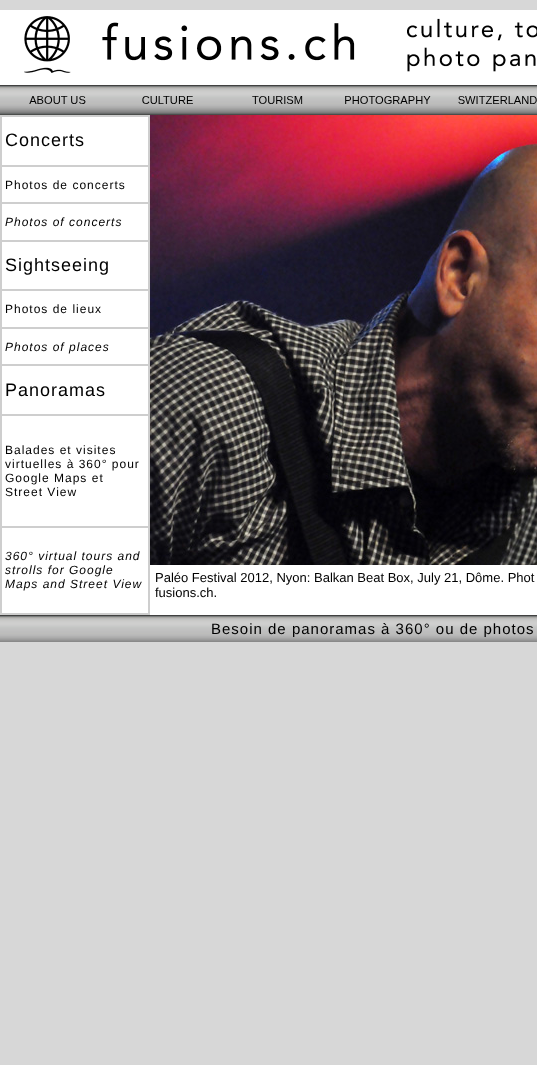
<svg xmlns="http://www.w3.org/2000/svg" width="537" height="1065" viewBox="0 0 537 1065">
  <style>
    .t1 { font: 18px Liberation Sans; letter-spacing: 1px; fill: #000; }
    .t2 { font: 12px Liberation Sans; letter-spacing: 1px; fill: #000; }
    .t3 { font: italic 12px Liberation Sans; letter-spacing: 1px; fill: #000; }
    .t4 { font: 13px Liberation Sans; fill: #000; }
    .t5 { font: 15px Liberation Sans; letter-spacing: 1px; fill: #000; }
  </style>
  <rect width="100%" height="100%" fill="#d7d7d7"/>
  <rect x="0" y="10" width="537" height="605" fill="#fff"/>
  <image x="24" y="16" width="513" height="57" href="images/1.png"/>
  <image x="0" y="85" width="537" height="30" href="images/2.png"/>
  <rect x="0" y="115" width="150" height="500" fill="#cecece"/>
  <rect x="2" y="117" width="146" height="48" fill="#fff"/>
  <text x="5" y="146" class="t1">Concerts</text>
  <rect x="2" y="167" width="146" height="35" fill="#fff"/>
  <text x="5" y="189" class="t2">Photos de concerts</text>
  <rect x="2" y="204" width="146" height="36" fill="#fff"/>
  <text x="5" y="226" class="t3">Photos of concerts</text>
  <rect x="2" y="242" width="146" height="47" fill="#fff"/>
  <text x="5" y="271" class="t1">Sightseeing</text>
  <rect x="2" y="291" width="146" height="36" fill="#fff"/>
  <text x="5" y="313" class="t2">Photos de lieux</text>
  <rect x="2" y="329" width="146" height="35" fill="#fff"/>
  <text x="5" y="351" class="t3">Photos of places</text>
  <rect x="2" y="366" width="146" height="48" fill="#fff"/>
  <text x="5" y="396" class="t1">Panoramas</text>
  <rect x="2" y="416" width="146" height="110" fill="#fff"/>
  <text x="5" y="454" class="t2">Balades et visites</text>
  <text x="5" y="468" class="t2">virtuelles à 360° pour</text>
  <text x="5" y="482" class="t2">Google Maps et</text>
  <text x="5" y="496" class="t2">Street View</text>
  <rect x="2" y="528" width="146" height="85" fill="#fff"/>
  <text x="5" y="560" class="t3">360° virtual tours and</text>
  <text x="5" y="574" class="t3">strolls for Google</text>
  <text x="5" y="588" class="t3">Maps and Street View</text>
  <image x="150" y="115" width="387" height="450" href="images/3.png"/>
  <text x="155" y="582" class="t4">Paléo Festival 2012, Nyon: Balkan Beat Box, July 21, Dôme. Phot</text>
  <text x="155" y="597" class="t4">fusions.ch.</text>
  <image x="0" y="615" width="537" height="27" href="images/4.png"/>
  <text x="211" y="634" class="t5">Besoin de panoramas à 360° ou de photos</text>
</svg>
